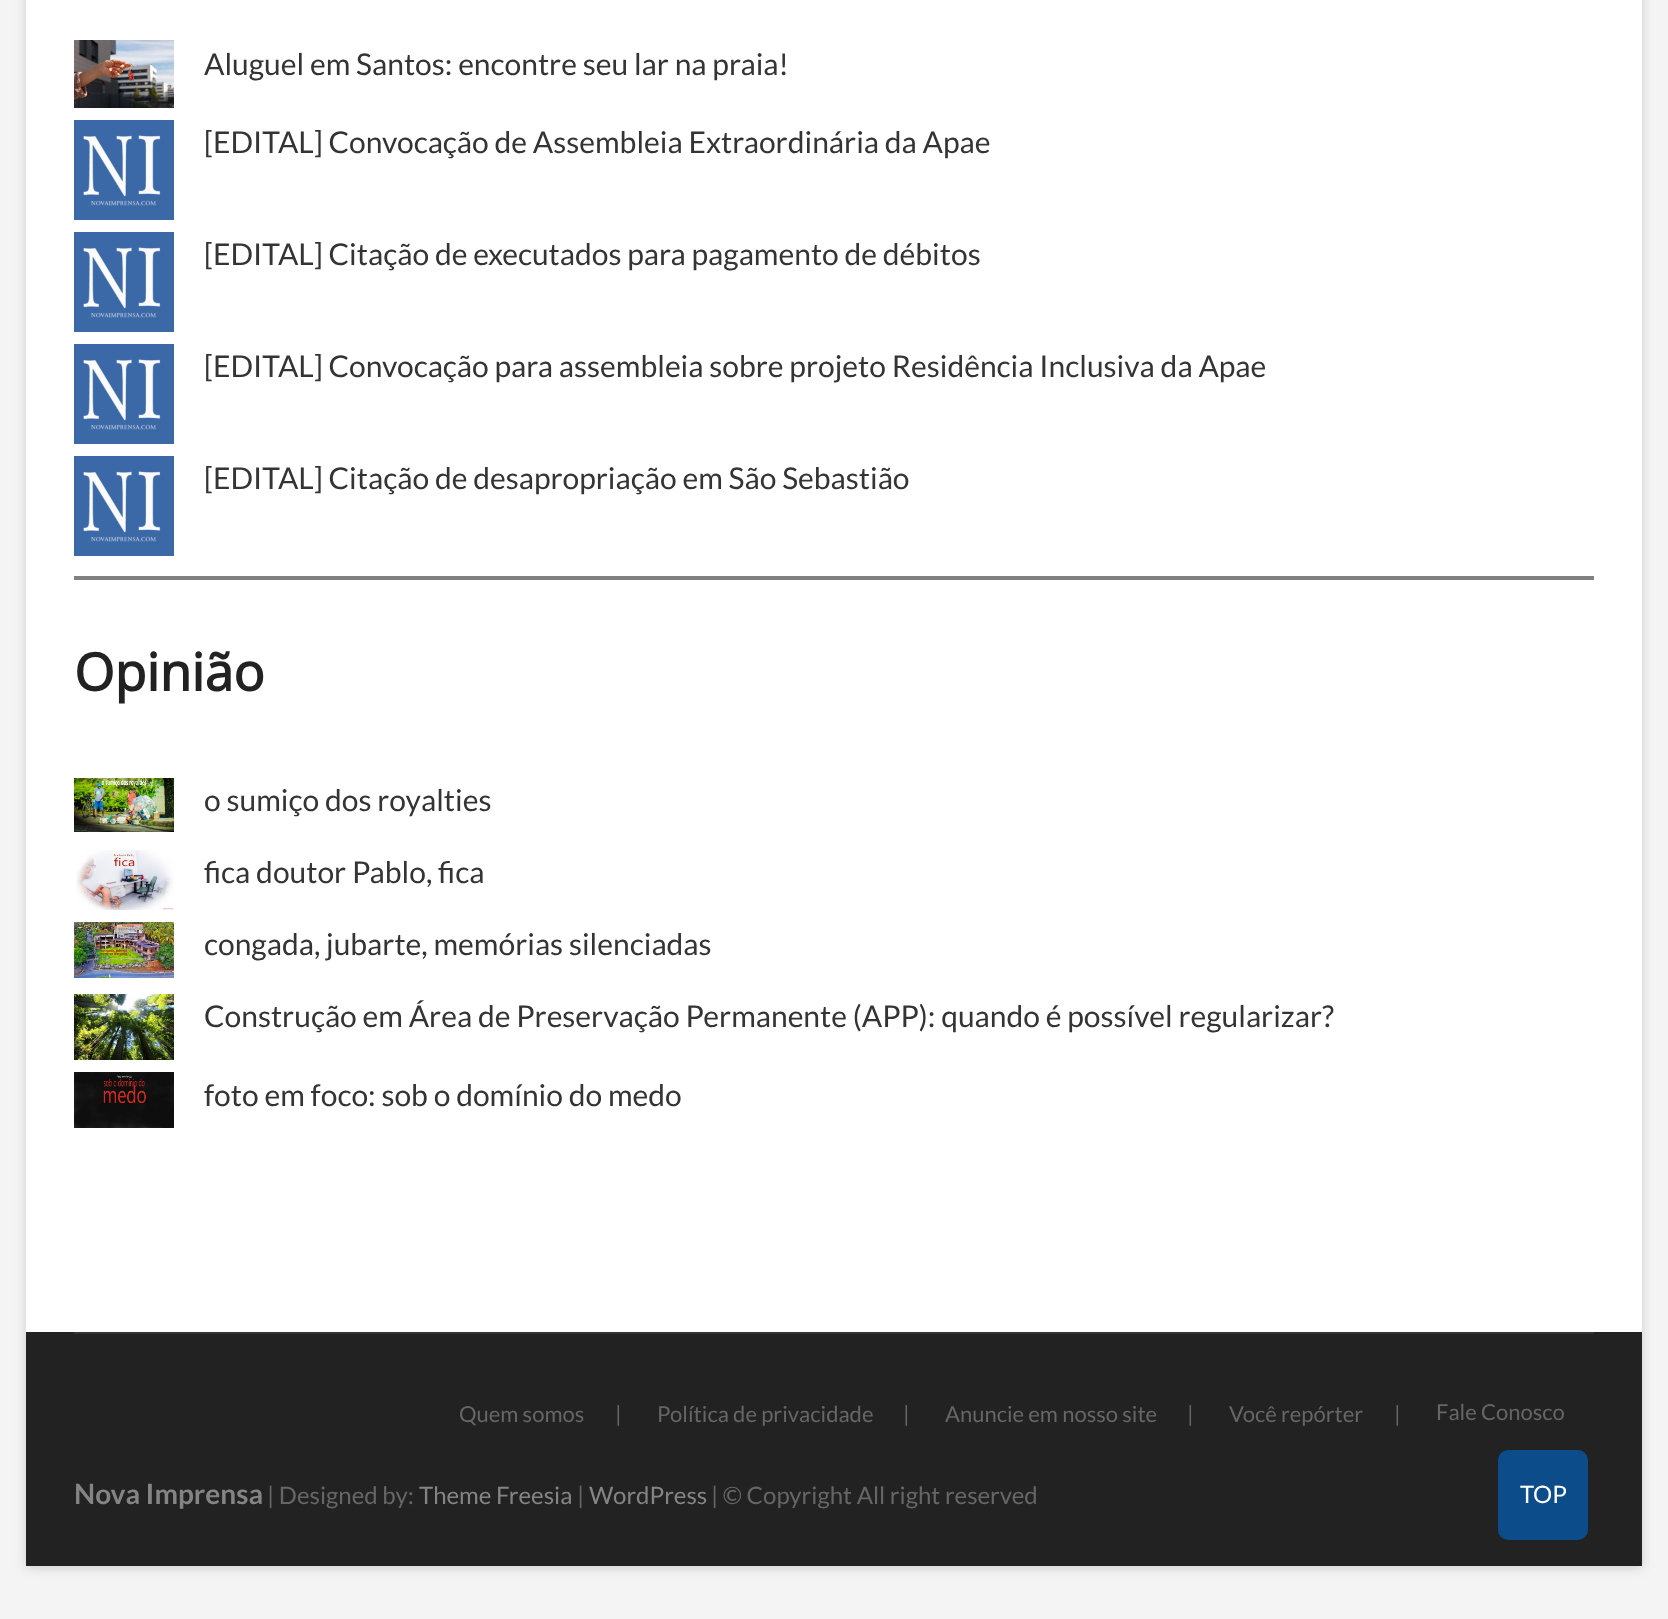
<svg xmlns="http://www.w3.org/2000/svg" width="1668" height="1619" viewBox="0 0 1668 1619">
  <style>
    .t1 { font: 30px Lato; fill: #343434; }
    .t2 { font: bold 52px Open Sans; fill: #222; }
    .t3 { font: 22px Lato; fill: #666; }
    .t4 { font: bold 28px Lato; fill: #848484; }
    .t5 { font: 24px Lato; fill: #666; }
    .t6 { font: 24px Lato; fill: #848484; }
    .t7 { font: 24px Lato; fill: #fff; }
  </style>
  <rect width="100%" height="100%" fill="#f4f4f4"/>
  <rect x="26" y="-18" width="1616" height="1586" fill="#00000026" filter="blur(6px)"/>
  <rect x="26" y="0" width="1616" height="1332" fill="#fff"/>
  <image x="74" y="40" width="100" height="68" href="images/1.png"/>
  <text x="204" y="75" class="t1">Aluguel em Santos: encontre seu lar na praia!</text>
  <image x="74" y="120" width="100" height="100" href="images/2.png"/>
  <text x="204" y="153" class="t1">[EDITAL] Convocação de Assembleia Extraordinária da Apae</text>
  <image x="74" y="232" width="100" height="100" href="images/2.png"/>
  <text x="204" y="265" class="t1">[EDITAL] Citação de executados para pagamento de débitos</text>
  <image x="74" y="344" width="100" height="100" href="images/2.png"/>
  <text x="204" y="377" class="t1">[EDITAL] Convocação para assembleia sobre projeto Residência Inclusiva da Apae</text>
  <image x="74" y="456" width="100" height="100" href="images/2.png"/>
  <text x="204" y="489" class="t1">[EDITAL] Citação de desapropriação em São Sebastião</text>
  <rect x="74" y="576" width="1520" height="4" fill="#808080"/>
  <text x="74" y="691" class="t2">Opinião</text>
  <image x="74" y="778" width="100" height="54" href="images/3.png"/>
  <text x="204" y="811" class="t1">o sumiço dos royalties</text>
  <image x="76" y="850" width="98" height="60" href="images/4.png"/>
  <text x="204" y="883" class="t1">fica doutor Pablo, fica</text>
  <image x="74" y="922" width="100" height="56" href="images/5.png"/>
  <text x="204" y="955" class="t1">congada, jubarte, memórias silenciadas</text>
  <image x="74" y="994" width="100" height="66" href="images/6.png"/>
  <text x="204" y="1027" class="t1">Construção em Área de Preservação Permanente (APP): quando é possível regularizar?</text>
  <image x="74" y="1072" width="100" height="56" href="images/7.png"/>
  <text x="204" y="1106" class="t1">foto em foco: sob o domínio do medo</text>
  <rect x="26" y="1332" width="1616" height="234" fill="#222"/>
  <rect x="74" y="1332" width="1520" height="2" fill="#333"/>
  <text x="459" y="1422" class="t3">Quem somos</text>
  <text x="615" y="1422" class="t3">|</text>
  <text x="657" y="1422" class="t3">Política de privacidade</text>
  <text x="903" y="1422" class="t3">|</text>
  <text x="945" y="1422" class="t3">Anuncie em nosso site</text>
  <text x="1187" y="1422" class="t3">|</text>
  <text x="1229" y="1422" class="t3">Você repórter</text>
  <text x="1394" y="1422" class="t3">|</text>
  <text x="1436" y="1420" class="t3">Fale Conosco</text>
  <text x="74" y="1504" class="t4">Nova Imprensa</text>
  <text x="267" y="1504" class="t5">| Designed by:</text>
  <text x="419" y="1504" class="t6">Theme Freesia</text>
  <text x="577" y="1504" class="t5">|</text>
  <text x="589" y="1504" class="t6">WordPress</text>
  <text x="711" y="1504" class="t5">| © Copyright All right reserved</text>
  <rect x="1498" y="1450" width="90" height="90" rx="10" fill="#0c4c8a"/>
  <text x="1520" y="1503" class="t7">TOP</text>
</svg>
